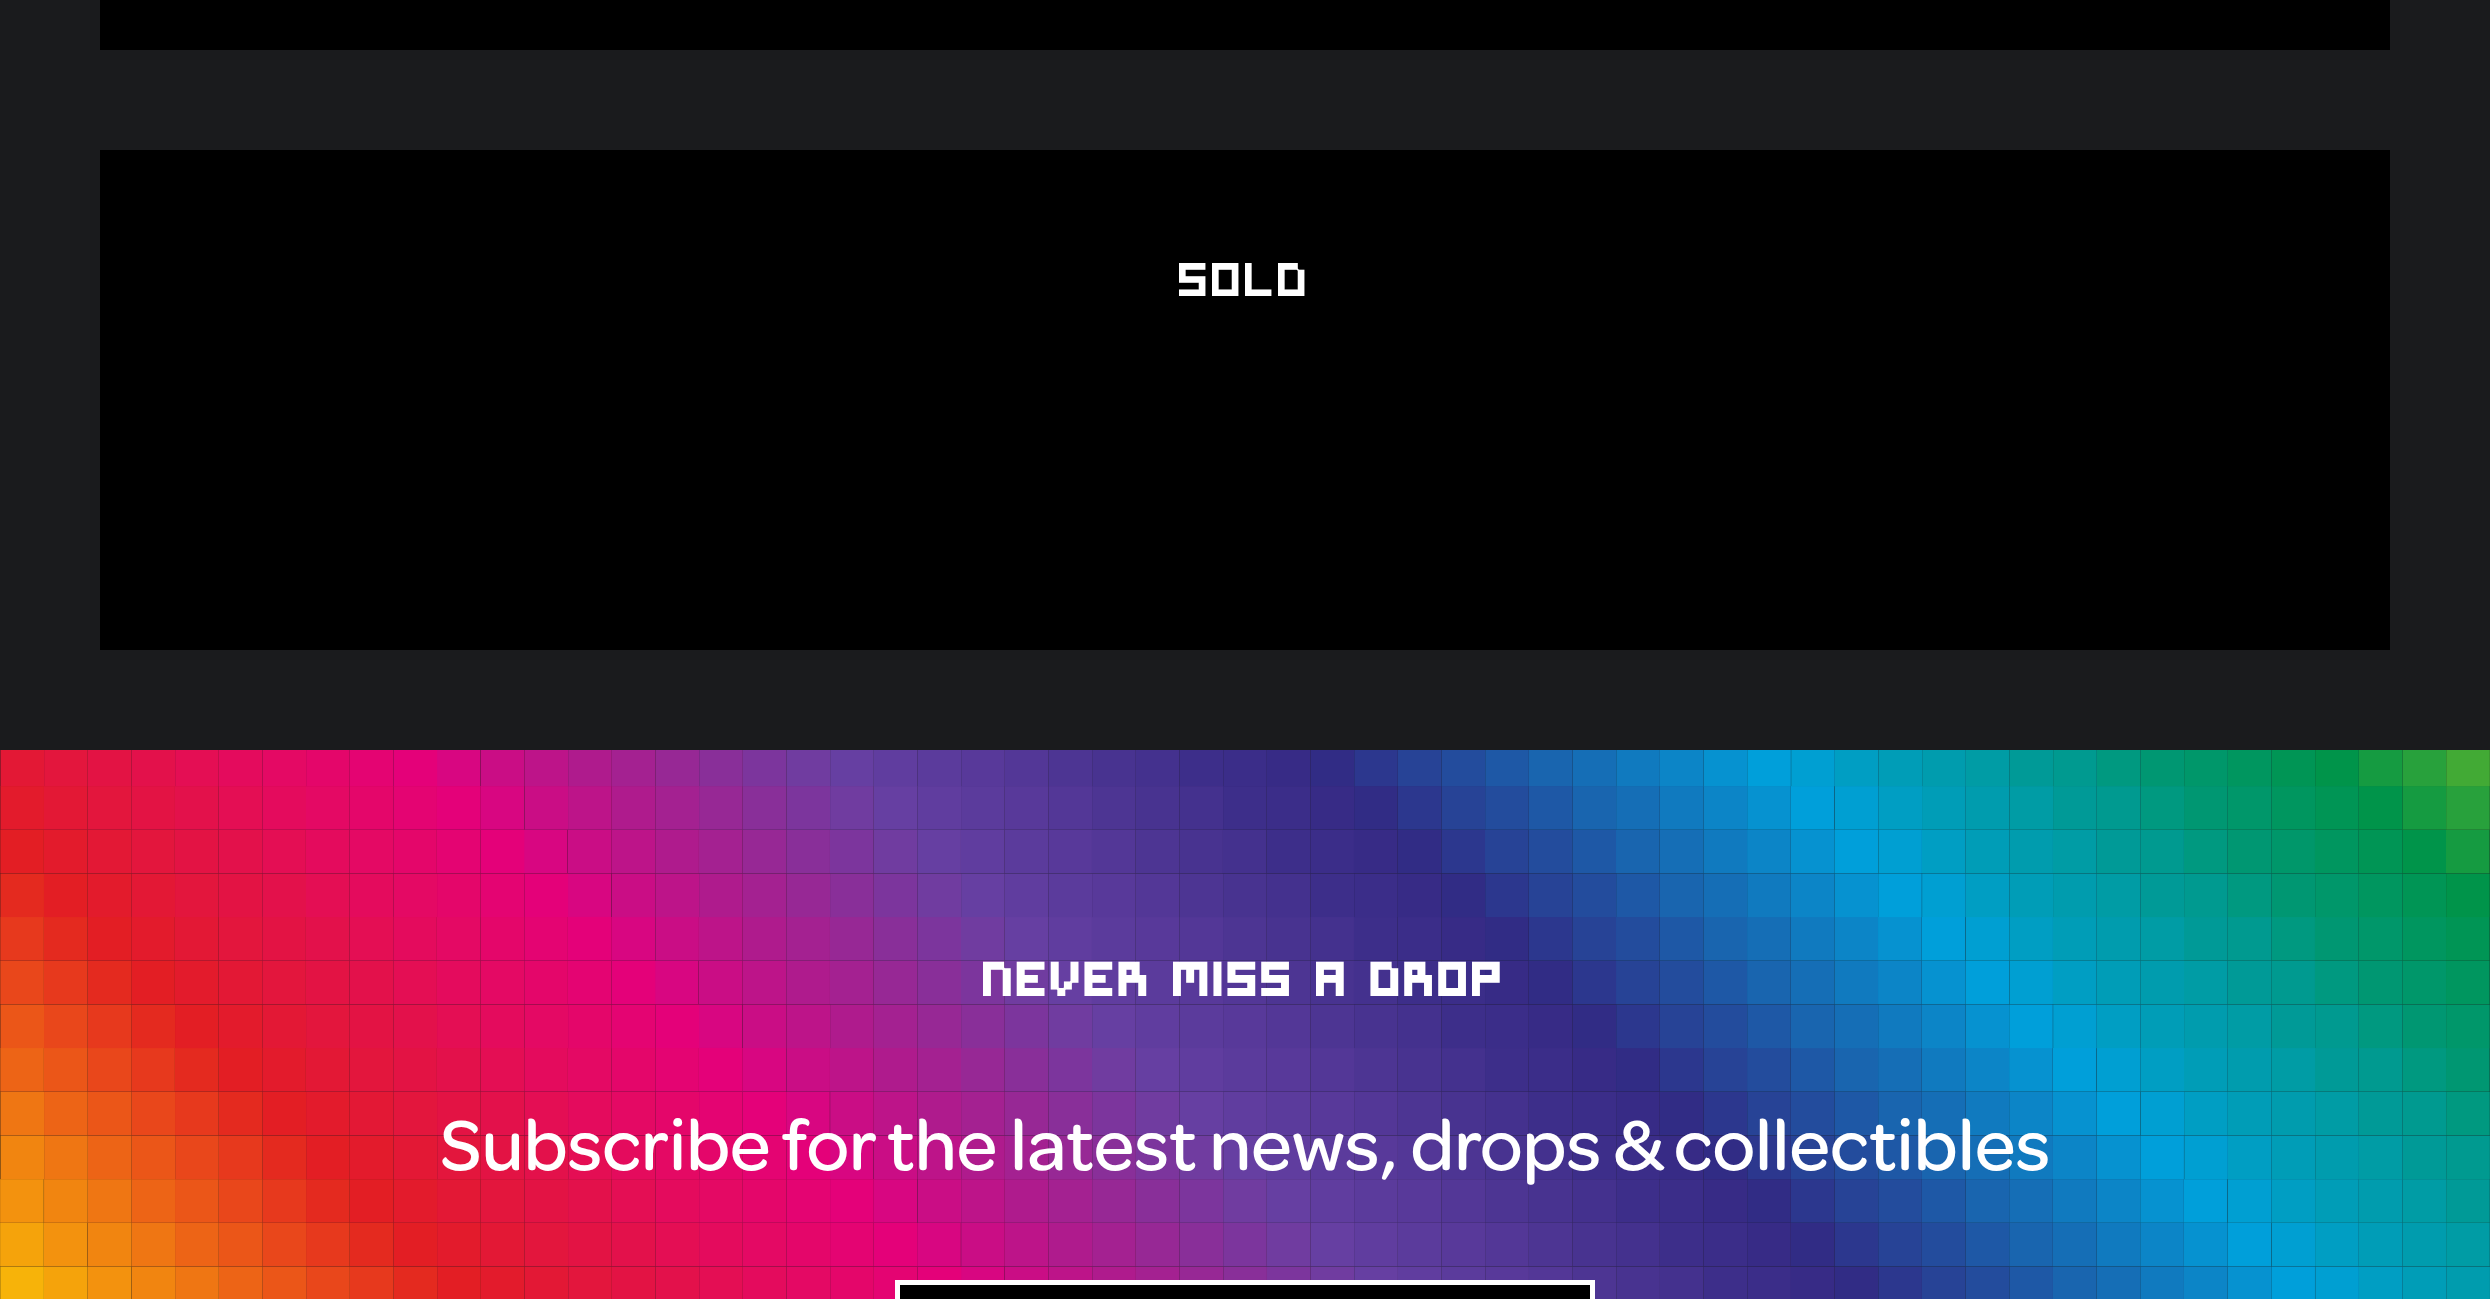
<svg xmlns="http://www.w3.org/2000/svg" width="2490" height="1299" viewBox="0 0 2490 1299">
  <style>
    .t1 { font: 45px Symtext; fill: #fff; }
    .t2 { font: bold 45px Symtext; letter-spacing: 0.9px; fill: #fff; }
    .t3 { font: 500 75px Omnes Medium; fill: #fff; }
  </style>
  <rect width="100%" height="100%" fill="#1a1b1d"/>
  <rect x="100" y="0" width="2290" height="50" fill="#000"/>
  <rect x="100" y="150" width="2290" height="500" fill="#000"/>
  <text x="1179" y="296" class="t1">SOLD</text>
  <image x="0" y="750" width="2490" height="549" href="images/1.png"/>
  <text x="983" y="996" class="t2">NEVER MISS A DROP</text>
  <text x="440" y="1170" class="t3">Subscribe for the latest news, drops &amp; collectibles</text>
  <rect x="897.5" y="1282.5" width="695" height="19" fill="#000" stroke="#fff" stroke-width="5"/>
</svg>
